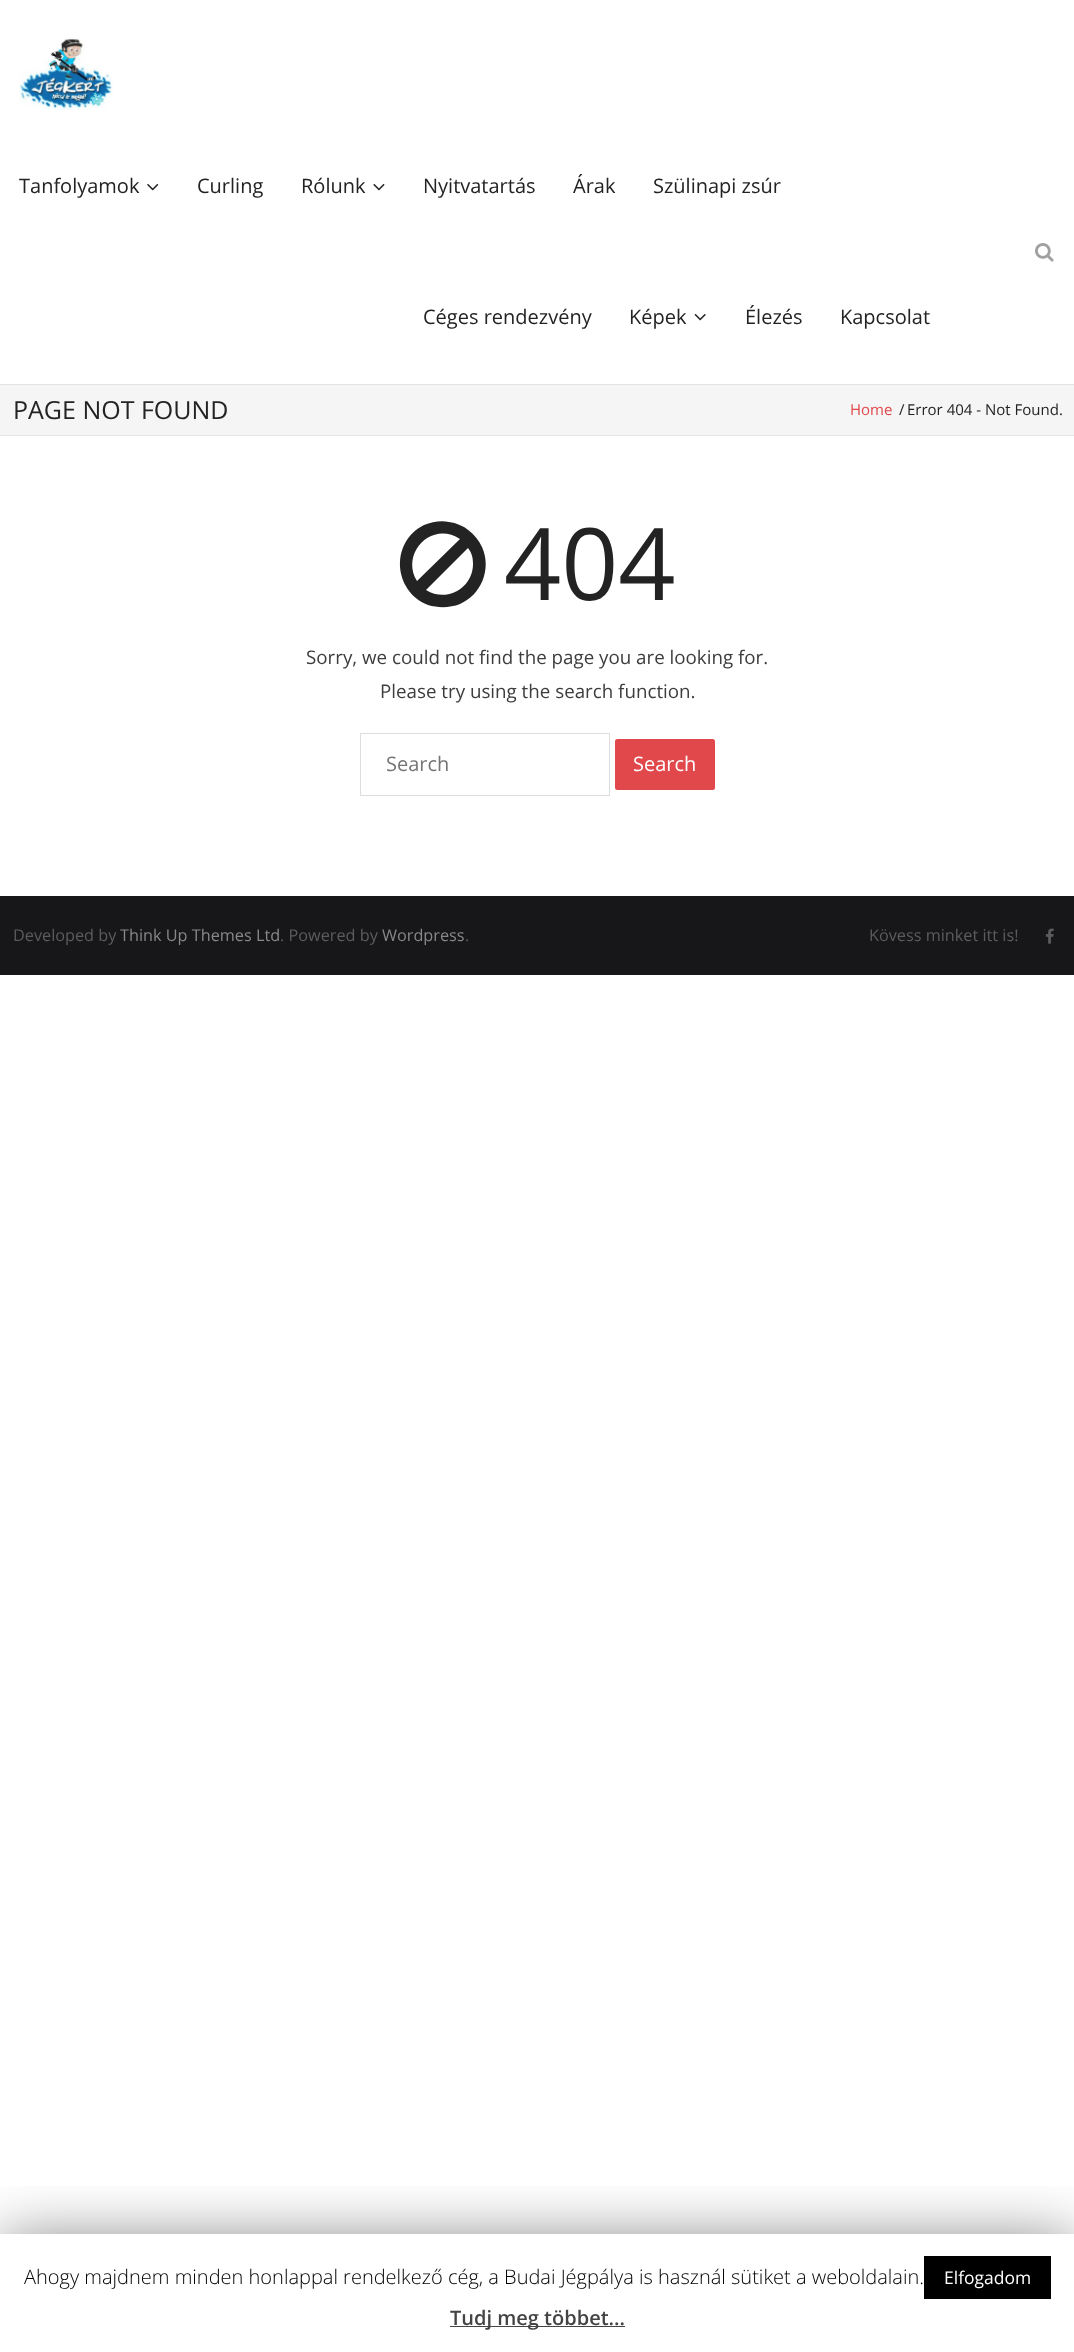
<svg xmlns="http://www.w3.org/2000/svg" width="1074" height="2352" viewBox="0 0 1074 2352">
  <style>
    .t1 { font: 20px Open Sans; fill: #232323; }
    .t2 { font: 25px Open Sans; fill: #232323; }
    .t3 { font: 15px Open Sans; fill: #e0484c; }
    .t4 { font: 15px Open Sans; fill: #232323; }
    .t5 { font: 100px Open Sans; fill: #232323; }
    .t6 { font: 18.75px Open Sans; fill: #3d3d3d; }
    .t7 { font: 20px Open Sans; fill: #757575; }
    .t8 { font: 20px Open Sans; fill: #fff; }
    .t9 { font: 16.25px Open Sans; fill: #5c5c5c; }
    .t10 { font: 16.25px Open Sans; fill: #888; }
    .t11 { font: 300 20px Open Sans; fill: #000; }
    .t12 { font: 17.5px Open Sans; fill: #fff; }
    .t13 { font: 600 20px Open Sans; fill: #444; }
  </style>
  <defs>
    <clipPath id="clip1"><rect x="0" y="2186" width="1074" height="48"/></clipPath>
  </defs>
  <rect width="100%" height="100%" fill="#fff"/>
  <rect x="0" y="384" width="1074" height="1" fill="#e3e3e3"/>
  <image x="19" y="38" width="94" height="72" href="images/1.png"/>
  <text x="19" y="193" class="t1">Tanfolyamok</text>
  <image x="147" y="183" width="12" height="8" href="images/2.png"/>
  <text x="197" y="193" class="t1">Curling</text>
  <text x="301" y="193" class="t1">Rólunk</text>
  <image x="373" y="183" width="12" height="8" href="images/3.png"/>
  <text x="423" y="193" class="t1">Nyitvatartás</text>
  <text x="573" y="193" class="t1">Árak</text>
  <text x="653" y="193" class="t1">Szülinapi zsúr</text>
  <text x="423" y="324" class="t1">Céges rendezvény</text>
  <text x="629" y="324" class="t1">Képek</text>
  <image x="694" y="313" width="12" height="8" href="images/4.png"/>
  <text x="745" y="324" class="t1">Élezés</text>
  <text x="840" y="324" class="t1">Kapcsolat</text>
  <image x="1035" y="243" width="19" height="19" href="images/5.png"/>
  <rect x="0" y="385" width="1074" height="50" fill="#f5f5f5"/>
  <rect x="0" y="435" width="1074" height="1" fill="#e3e3e3"/>
  <text x="13" y="419" class="t2">PAGE NOT FOUND</text>
  <text x="850" y="415" class="t3">Home</text>
  <text x="899" y="415" class="t4">/</text>
  <text x="907" y="415" class="t4">Error 404 - Not Found.</text>
  <path d="M473 564C473 558 472 553 468 548L426 590C447 603 473 588 473 564ZM417 581L460 539C432 520 400 553 417 581ZM482 547C492 569 481 595 460 604C450 608 438 608 428 605C393 591 390 542 424 525C432 522 441 520 449 522C464 524 476 534 482 547Z" fill="#232323"/>
  <text x="504" y="600" class="t5">404</text>
  <text x="306" y="664" class="t6">Sorry, we could not find the page you are looking for.</text>
  <text x="380" y="698" class="t6">Please try using the search function.</text>
  <rect x="360.5" y="733.5" width="249" height="62" fill="none" stroke="#ddd"/>
  <text x="386" y="771" class="t7">Search</text>
  <rect x="615" y="739" width="100" height="51" rx="2.5" fill="#e0484c"/>
  <text x="633" y="771" class="t8">Search</text>
  <rect x="0" y="896" width="1074" height="79" fill="#171719"/>
  <text x="13" y="941" class="t9">Developed by</text>
  <text x="120" y="941" class="t10">Think Up Themes Ltd</text>
  <text x="280" y="941" class="t9">. Powered by</text>
  <text x="382" y="941" class="t10">Wordpress</text>
  <text x="465" y="941" class="t9">.</text>
  <text x="869" y="941" class="t9">Kövess minket itt is!</text>
  <image x="1045" y="928" width="9" height="16" href="images/6.png"/>
  <g clip-path="url(#clip1)">
    <rect x="0" y="2240" width="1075" height="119" fill="#00000080" filter="blur(31px)"/>
  </g>
  <text x="24" y="2284" class="t11">Ahogy majdnem minden honlappal rendelkező cég, a Budai Jégpálya is használ sütiket a weboldalain.</text>
  <rect x="924" y="2256" width="127" height="43" fill="#000"/>
  <text x="944" y="2284" class="t12">Elfogadom</text>
  <rect x="450" y="2326" width="175" height="1" fill="#444"/>
  <text x="450" y="2325" class="t13">Tudj meg többet...</text>
</svg>
